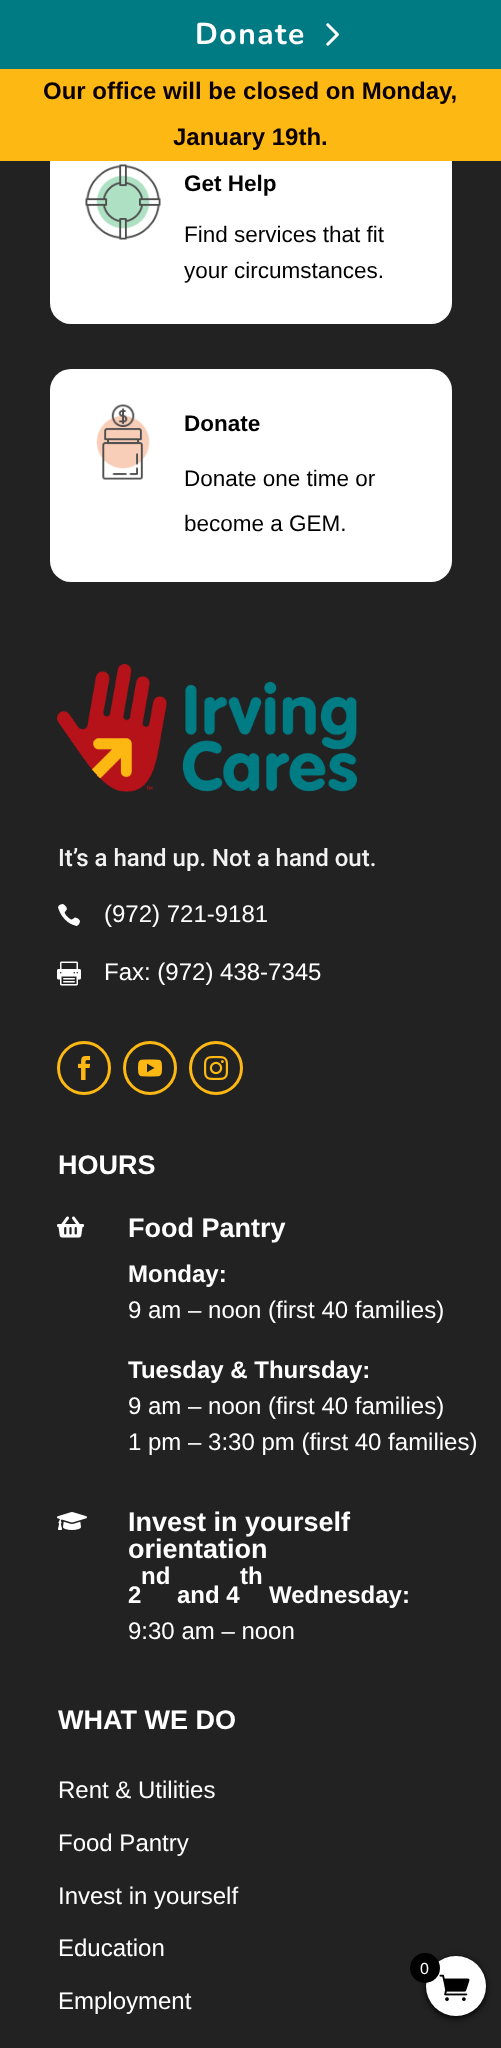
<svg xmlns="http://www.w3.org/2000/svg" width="501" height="2048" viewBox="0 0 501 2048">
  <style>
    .t1 { font: bold 30px Nunito; letter-spacing: 1.5px; fill: #fff; }
    .t2 { font: bold 24px Liberation Sans; fill: #0a0000; }
    .t3 { font: bold 22.5px Liberation Sans; fill: #000; }
    .t4 { font: 22.5px Liberation Sans; fill: #000; }
    .t5 { font: 500 24px Roboto; fill: #f2f2f2; }
    .t6 { font: 24px Liberation Sans; fill: #fff; }
    .t7 { font: bold 27px Liberation Sans; fill: #fff; }
    .t8 { font: bold 24px Liberation Sans; fill: #fff; }
    .t9 { font: 16px Liberation Sans; fill: #fff; }
  </style>
  <rect width="100%" height="100%" fill="#222"/>
  <rect x="0" y="0" width="501" height="69" fill="#007b84"/>
  <text x="195" y="44" class="t1">Donate</text>
  <image x="326" y="23" width="13" height="23" href="images/1.png"/>
  <rect x="50" y="129" width="402" height="195" rx="21" fill="#fff"/>
  <rect x="0" y="69" width="501" height="92" fill="#fdb813"/>
  <text x="43" y="99" class="t2">Our office will be closed on Monday,</text>
  <text x="173" y="145" class="t2">January 19th.</text>
  <image x="85" y="164" width="76" height="76" href="images/2.png"/>
  <text x="184" y="191" class="t3">Get Help</text>
  <text x="184" y="242" class="t4">Find services that fit</text>
  <text x="184" y="278" class="t4">your circumstances.</text>
  <rect x="50" y="369" width="402" height="213" rx="21" fill="#fff"/>
  <image x="96" y="404" width="54" height="76" href="images/3.png"/>
  <text x="184" y="431" class="t3">Donate</text>
  <text x="184" y="486" class="t4">Donate one time or</text>
  <text x="184" y="531" class="t4">become a GEM.</text>
  <image x="57" y="664" width="300" height="128" href="images/4.png"/>
  <text x="58" y="866" class="t5">It’s a hand up. Not a hand out.</text>
  <image x="58" y="904" width="22" height="22" href="images/5.png"/>
  <text x="104" y="922" class="t6">(972) 721-9181</text>
  <image x="57" y="961" width="24" height="25" href="images/6.png"/>
  <text x="104" y="980" class="t6">Fax: (972) 438-7345</text>
  <circle cx="84" cy="1068" r="25.5" fill="none" stroke="#fdb813" stroke-width="3"/>
  <image x="78" y="1056" width="13" height="24" href="images/7.png"/>
  <circle cx="150" cy="1068" r="25.5" fill="none" stroke="#fdb813" stroke-width="3"/>
  <image x="138" y="1059" width="24" height="18" href="images/8.png"/>
  <circle cx="216" cy="1068" r="25.5" fill="none" stroke="#fdb813" stroke-width="3"/>
  <image x="204" y="1056" width="24" height="24" href="images/9.png"/>
  <text x="58" y="1174" class="t7">HOURS</text>
  <image x="57" y="1216" width="27" height="22" href="images/10.png"/>
  <text x="128" y="1237" class="t7">Food Pantry</text>
  <text x="128" y="1282" class="t8">Monday:</text>
  <text x="128" y="1318" class="t6">9 am – noon (first 40 families)</text>
  <text x="128" y="1378" class="t8">Tuesday &amp; Thursday:</text>
  <text x="128" y="1414" class="t6">9 am – noon (first 40 families)</text>
  <text x="128" y="1450" class="t6">1 pm – 3:30 pm (first 40 families)</text>
  <image x="57" y="1512" width="30" height="18" href="images/11.png"/>
  <text x="128" y="1531" class="t7">Invest in yourself</text>
  <text x="128" y="1558" class="t7">orientation</text>
  <text x="141" y="1584" class="t8">nd</text>
  <text x="240" y="1584" class="t8">th</text>
  <text x="128" y="1603" class="t8">2</text>
  <text x="177" y="1603" class="t8">and 4</text>
  <text x="269" y="1603" class="t8">Wednesday:</text>
  <text x="128" y="1639" class="t6">9:30 am – noon</text>
  <text x="58" y="1729" class="t7">WHAT WE DO</text>
  <text x="58" y="1798" class="t6">Rent &amp; Utilities</text>
  <text x="58" y="1851" class="t6">Food Pantry</text>
  <text x="58" y="1904" class="t6">Invest in yourself</text>
  <text x="58" y="1956" class="t6">Education</text>
  <text x="58" y="2009" class="t6">Employment</text>
  <rect x="426" y="1958" width="60" height="60" rx="30" fill="#000" filter="blur(3px)"/>
  <circle cx="456" cy="1986" r="30" fill="#fff"/>
  <image x="439" y="1974" width="31" height="27" href="images/12.png"/>
  <circle cx="425" cy="1968" r="15" fill="#000"/>
  <text x="420" y="1974" class="t9">0</text>
</svg>
